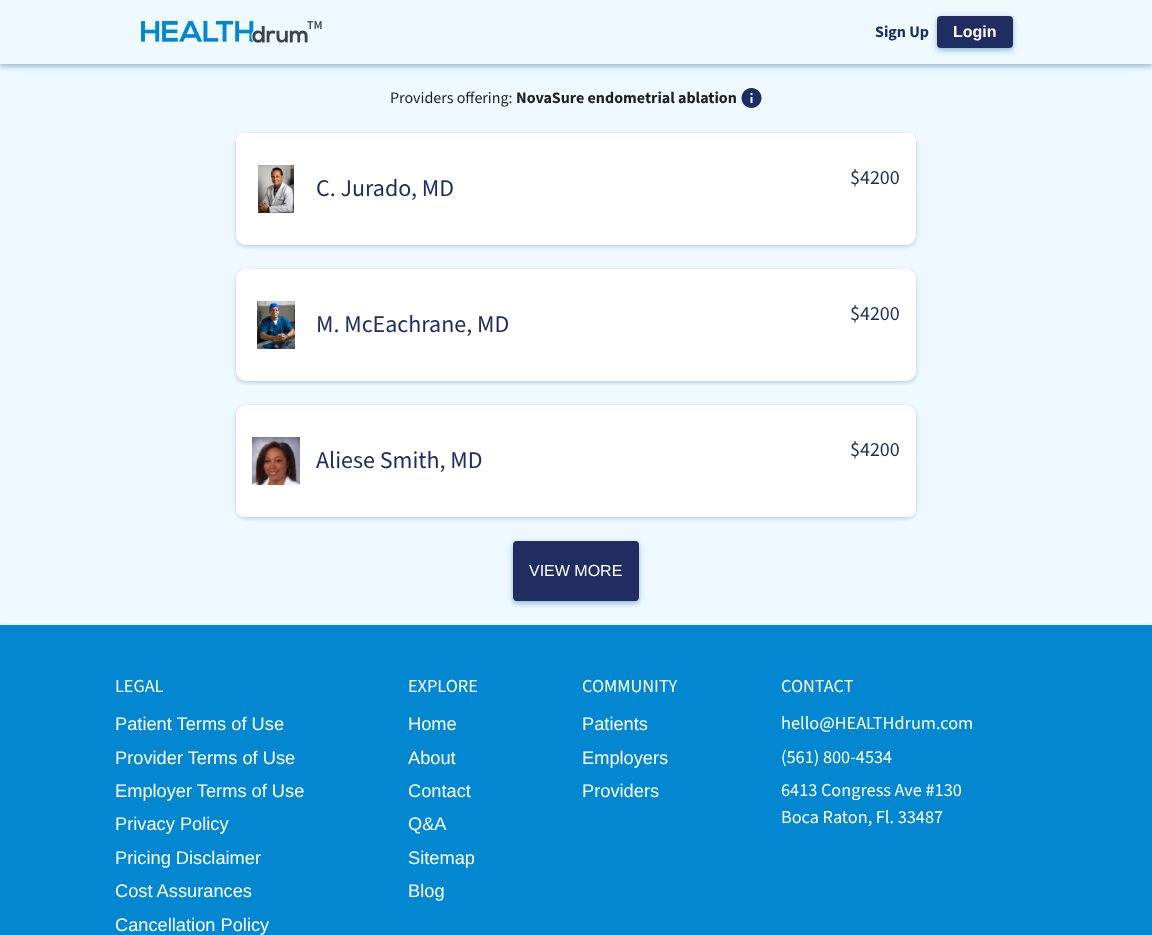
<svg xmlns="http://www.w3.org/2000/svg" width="1152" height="935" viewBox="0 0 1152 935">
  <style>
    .t1 { font: bold 16px 'Source Sans 3'; fill: #1f2d63; }
    .t2 { font: bold 16px Liberation Sans; fill: #fff; }
    .t3 { font: 16px 'Source Sans 3'; fill: #1f2121; }
    .t4 { font: bold 16px 'Source Sans 3'; fill: #1f2121; }
    .t5 { font: 24px 'Source Sans 3'; fill: #1f2d63; }
    .t6 { font: 20px 'Source Sans 3'; fill: #1f2d63; }
    .t7 { font: 16px Liberation Sans; fill: #fff; }
    .t8 { font: 18.25px 'Source Sans 3'; fill: #fff; }
    .t9 { font: 18.25px Liberation Sans; fill: #fff; }
  </style>
  <rect width="100%" height="100%" fill="#eefaff"/>
  <rect x="0" y="4" width="1152" height="64" fill="#00a3ff24" filter="blur(2.5px)"/>
  <rect x="0" y="1" width="1152" height="64" fill="#6061701f" filter="blur(5px)"/>
  <rect x="0" y="2" width="1152" height="64" fill="#28293d33" filter="blur(2px)"/>
  <rect x="0" y="0" width="1152" height="64" fill="#eefaff"/>
  <image x="141" y="21" width="181" height="22" href="images/1.png"/>
  <text x="875" y="37" class="t1">Sign Up</text>
  <rect x="937" y="20" width="76" height="32" rx="4" fill="#00a3ff24" filter="blur(2.5px)"/>
  <rect x="937" y="17" width="76" height="32" rx="4" fill="#6061701f" filter="blur(5px)"/>
  <rect x="937" y="18" width="76" height="32" rx="4" fill="#28293d33" filter="blur(2px)"/>
  <rect x="937" y="16" width="76" height="32" rx="4" fill="#1f2d63"/>
  <text x="953" y="37" class="t2">Login</text>
  <text x="390" y="103" class="t3">Providers offering:</text>
  <text x="516" y="103" class="t4">NovaSure endometrial ablation</text>
  <image x="741" y="88" width="21" height="20" href="images/2.png"/>
  <rect x="236" y="134" width="680" height="112" rx="10" fill="#00a3ff24" filter="blur(2px)"/>
  <rect x="236" y="135" width="680" height="112" rx="10" fill="#60617033" filter="blur(2px)"/>
  <path d="M244 133H908C912.5 133 916 136.5 916 141V235C916 240.5 911.5 245 906 245H246C240.5 245 236 240.5 236 235V141C236 136.5 239.5 133 244 133Z" fill="#fff"/>
  <image x="258" y="165" width="36" height="48" href="images/3.png"/>
  <text x="316" y="196" class="t5">C. Jurado, MD</text>
  <text x="850" y="184" class="t6">$4200</text>
  <rect x="236" y="270" width="680" height="112" rx="10" fill="#00a3ff24" filter="blur(2px)"/>
  <rect x="236" y="271" width="680" height="112" rx="10" fill="#60617033" filter="blur(2px)"/>
  <rect x="236" y="269" width="680" height="112" rx="10" fill="#fff"/>
  <image x="257" y="301" width="38" height="48" href="images/4.png"/>
  <text x="316" y="332" class="t5">M. McEachrane, MD</text>
  <text x="850" y="320" class="t6">$4200</text>
  <rect x="236" y="406" width="680" height="112" rx="10" fill="#00a3ff24" filter="blur(2px)"/>
  <rect x="236" y="407" width="680" height="112" rx="10" fill="#60617033" filter="blur(2px)"/>
  <path d="M246 405H906C911.5 405 916 409.5 916 415V509C916 513.5 912.5 517 908 517H244C239.5 517 236 513.5 236 509V415C236 409.5 240.5 405 246 405Z" fill="#fff"/>
  <image x="252" y="437" width="48" height="48" href="images/5.png"/>
  <text x="316" y="468" class="t5">Aliese Smith, MD</text>
  <text x="850" y="456" class="t6">$4200</text>
  <rect x="513" y="545" width="126" height="60" rx="4" fill="#00a3ff24" filter="blur(2.5px)"/>
  <rect x="513" y="542" width="126" height="60" rx="4" fill="#6061701f" filter="blur(5px)"/>
  <rect x="513" y="543" width="126" height="60" rx="4" fill="#28293d33" filter="blur(2px)"/>
  <rect x="513" y="541" width="126" height="60" rx="4" fill="#1f2d63"/>
  <text x="529" y="576" class="t7">VIEW MORE</text>
  <rect x="0" y="625" width="1152" height="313" fill="#00a3ff40" filter="blur(1px)"/>
  <rect x="0" y="625" width="1152" height="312" fill="#28293d33" filter="blur(0.5px)"/>
  <rect x="0" y="625" width="1152" height="310" fill="#0287d0"/>
  <text x="115" y="692" class="t8">LEGAL</text>
  <text x="115" y="730" class="t9">Patient Terms of Use</text>
  <text x="115" y="764" class="t9">Provider Terms of Use</text>
  <text x="115" y="797" class="t9">Employer Terms of Use</text>
  <text x="115" y="830" class="t9">Privacy Policy</text>
  <text x="115" y="864" class="t9">Pricing Disclaimer</text>
  <text x="115" y="897" class="t9">Cost Assurances</text>
  <text x="115" y="931" class="t9">Cancellation Policy</text>
  <text x="408" y="692" class="t8">EXPLORE</text>
  <text x="408" y="730" class="t9">Home</text>
  <text x="408" y="764" class="t9">About</text>
  <text x="408" y="797" class="t9">Contact</text>
  <text x="408" y="830" class="t9">Q&amp;A</text>
  <text x="408" y="864" class="t9">Sitemap</text>
  <text x="408" y="897" class="t9">Blog</text>
  <text x="582" y="692" class="t8">COMMUNITY</text>
  <text x="582" y="730" class="t9">Patients</text>
  <text x="582" y="764" class="t9">Employers</text>
  <text x="582" y="797" class="t9">Providers</text>
  <text x="781" y="692" class="t8">CONTACT</text>
  <text x="781" y="729" class="t8">hello@HEALTHdrum.com</text>
  <text x="781" y="763" class="t8">(561) 800-4534</text>
  <text x="781" y="796" class="t8">6413 Congress Ave #130</text>
  <text x="781" y="823" class="t8">Boca Raton, Fl. 33487</text>
</svg>
